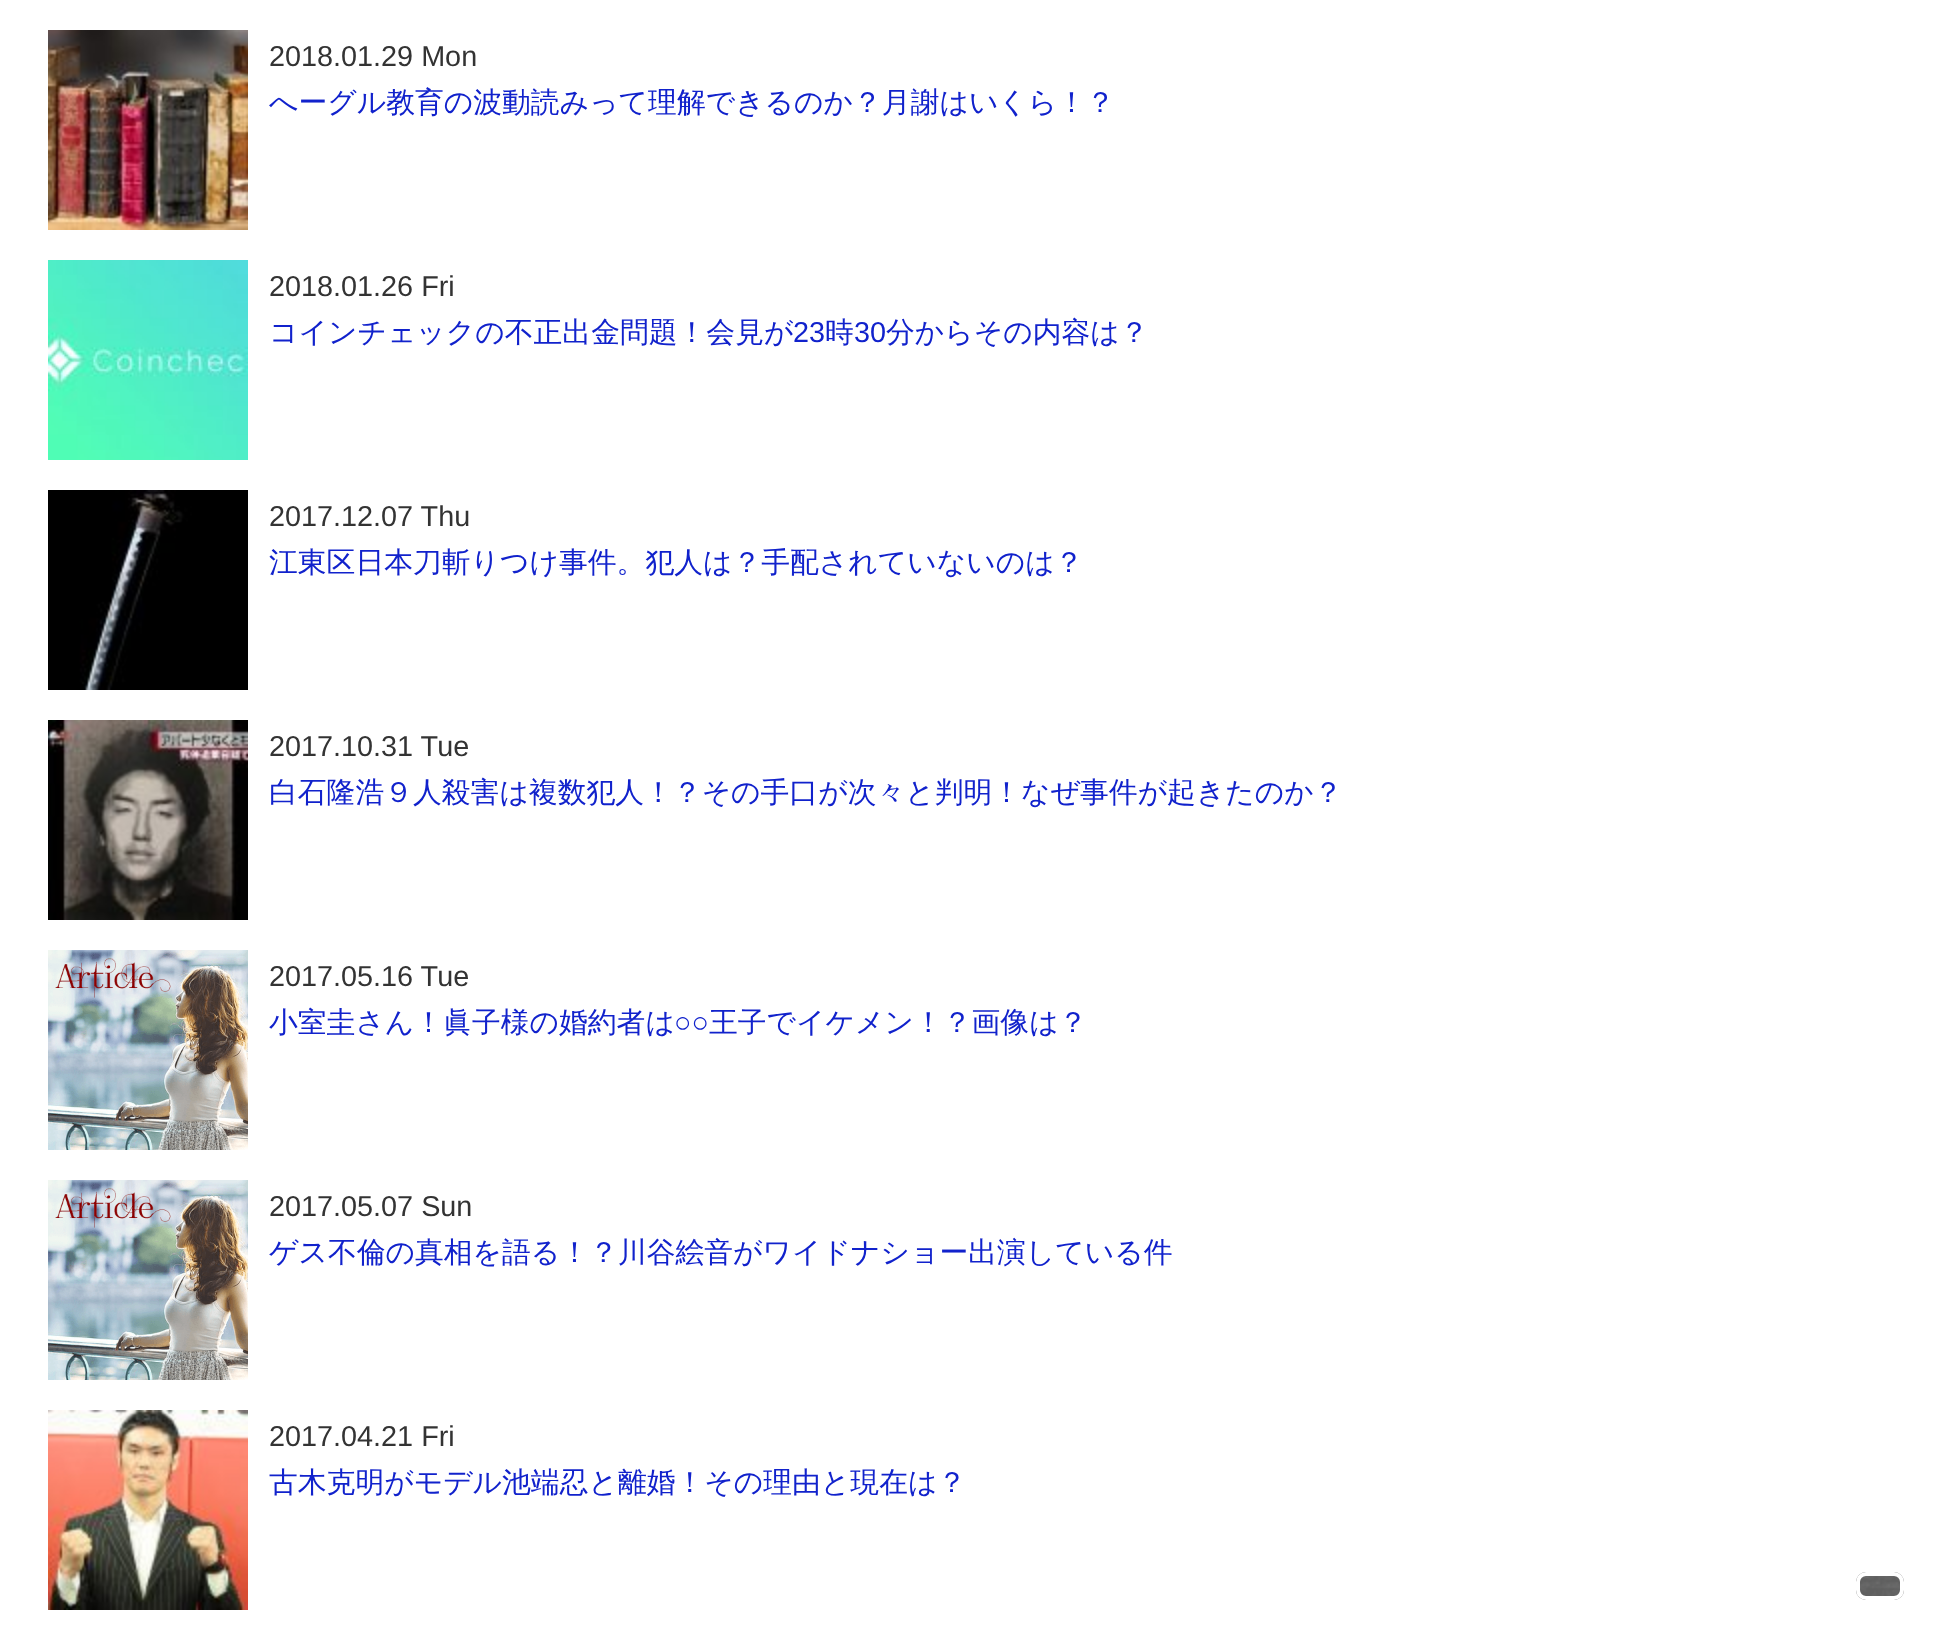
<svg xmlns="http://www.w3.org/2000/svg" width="1943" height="1639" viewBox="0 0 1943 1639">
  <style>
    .t1 { font: 28.8px Liberation Sans; fill: #333; }
    .t2 { font: 500 28.8px WenQuanYi Zen Hei; fill: #12c; }
    .t3 { font: 28.8px Liberation Sans; fill: #12c; }
  </style>
  <rect width="100%" height="100%" fill="#fff"/>
  <image x="48" y="30" width="200" height="200" href="images/1.png"/>
  <text x="269" y="66" class="t1">2018.01.29 Mon</text>
  <text x="269" y="112" class="t2">へーグル教育の波動読みって理解できるのか？月謝はいくら！？</text>
  <image x="48" y="260" width="200" height="200" href="images/2.png"/>
  <text x="269" y="296" class="t1">2018.01.26 Fri</text>
  <text x="269" y="342" class="t2">コインチェックの不正出金問題！会見が</text>
  <text x="793" y="342" class="t3">23</text>
  <text x="825" y="342" class="t2">時</text>
  <text x="854" y="342" class="t3">30</text>
  <text x="886" y="342" class="t2">分からその内容は？</text>
  <image x="48" y="490" width="200" height="200" href="images/3.png"/>
  <text x="269" y="526" class="t1">2017.12.07 Thu</text>
  <text x="269" y="572" class="t2">江東区日本刀斬りつけ事件。犯人は？手配されていないのは？</text>
  <image x="48" y="720" width="200" height="200" href="images/4.png"/>
  <text x="269" y="756" class="t1">2017.10.31 Tue</text>
  <text x="269" y="802" class="t2">白石隆浩９人殺害は複数犯人！？その手口が次々と判明！なぜ事件が起きたのか？</text>
  <image x="48" y="950" width="200" height="200" href="images/5.png"/>
  <text x="269" y="986" class="t1">2017.05.16 Tue</text>
  <text x="269" y="1032" class="t2">小室圭さん！眞子様の婚約者は</text>
  <text x="674" y="1032" class="t3">○○</text>
  <text x="709" y="1032" class="t2">王子でイケメン！？画像は？</text>
  <image x="48" y="1180" width="200" height="200" href="images/5.png"/>
  <text x="269" y="1216" class="t1">2017.05.07 Sun</text>
  <text x="269" y="1262" class="t2">ゲス不倫の真相を語る！？川谷絵音がワイドナショー出演している件</text>
  <image x="48" y="1410" width="200" height="200" href="images/6.png"/>
  <text x="269" y="1446" class="t1">2017.04.21 Fri</text>
  <text x="269" y="1492" class="t2">古木克明がモデル池端忍と離婚！その理由と現在は？</text>
  <image x="1856" y="1572" width="48" height="28" href="images/7.png"/>
  <rect x="1858" y="1574" width="44" height="24" rx="8" fill="none" stroke="#fff" stroke-width="4"/>
</svg>
